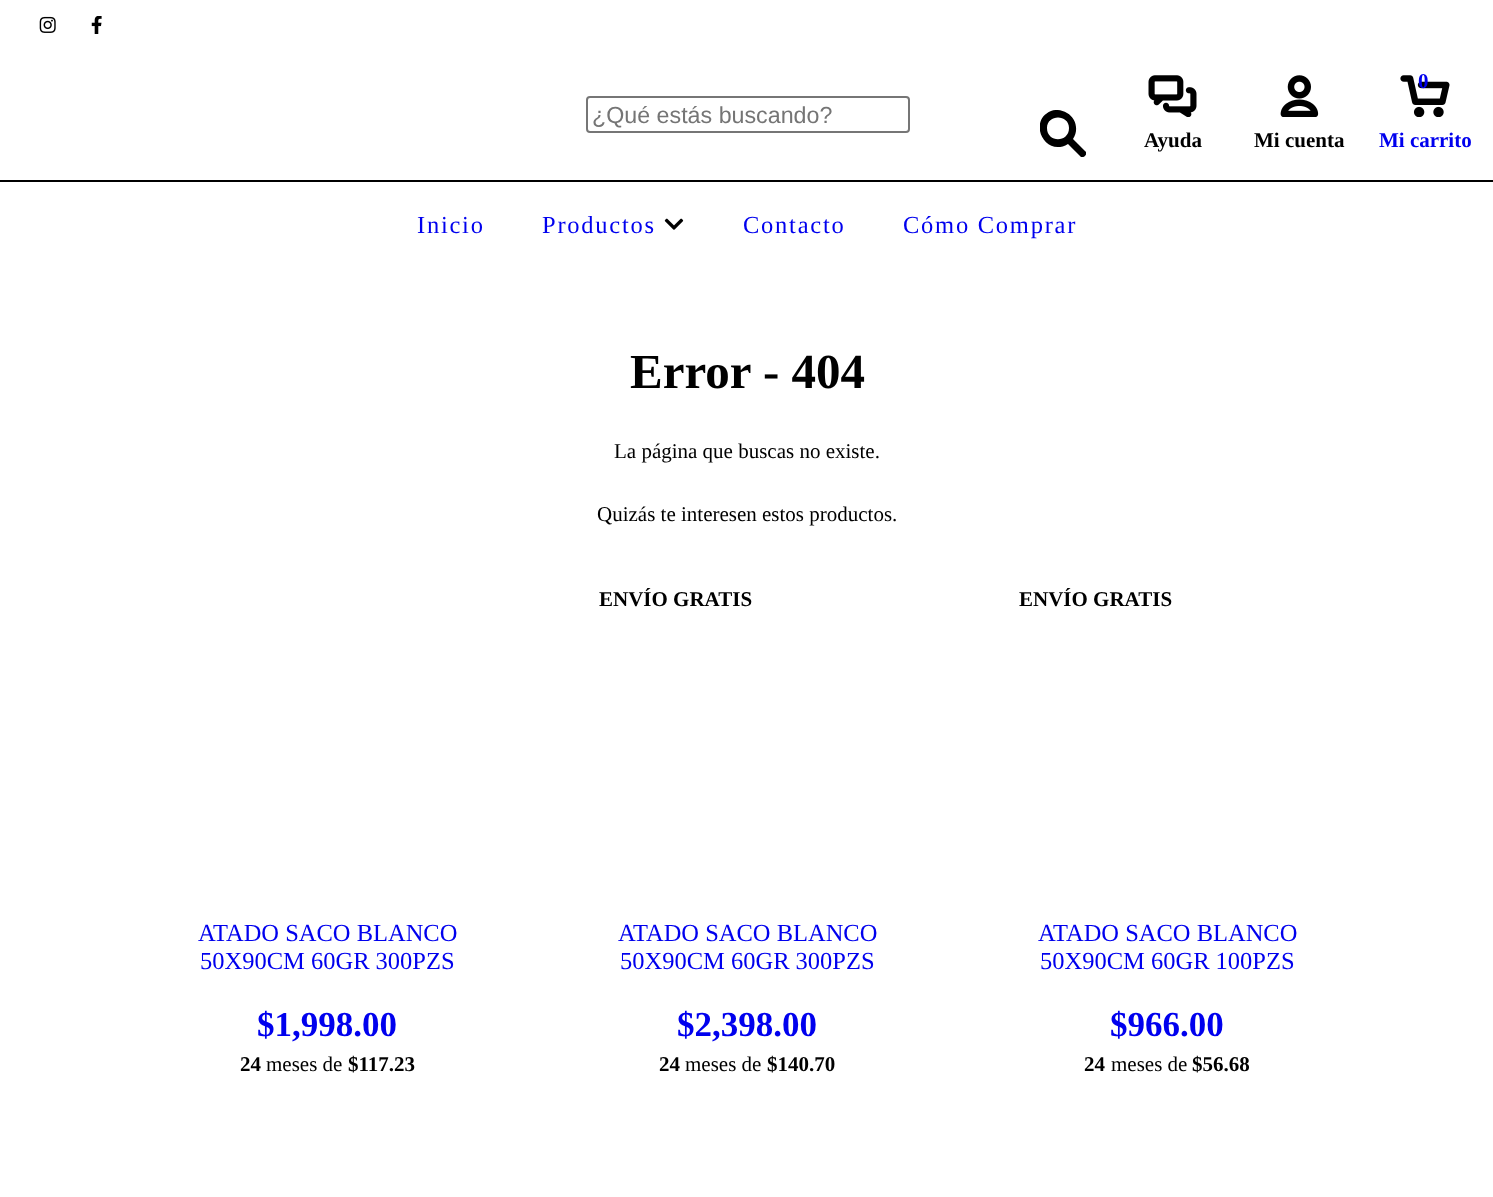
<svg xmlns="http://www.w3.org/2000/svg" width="1493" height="1197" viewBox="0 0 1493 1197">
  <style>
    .t1 { font: 23.25px Liberation Sans; fill: #757575; }
    .t2 { font: bold 21px Liberation Serif; fill: #000; }
    .t3 { font: bold 21px Liberation Serif; fill: #00e; }
    .t4 { font: 24.5px Liberation Serif; letter-spacing: 1.75px; fill: #00e; }
    .t5 { font: bold 49px Liberation Serif; fill: #000; }
    .t6 { font: 21px Liberation Serif; fill: #000; }
    .t7 { font: 24.5px Liberation Serif; fill: #00e; }
    .t8 { font: bold 35px Liberation Serif; fill: #00e; }
  </style>
  <defs>
    <clipPath id="clip1"><rect x="1040" y="110" width="46" height="47"/></clipPath>
  </defs>
  <rect width="100%" height="100%" fill="#fff"/>
  <image x="39" y="16" width="17" height="17" href="images/1.png"/>
  <image x="91" y="16" width="11" height="18" href="images/2.png"/>
  <rect x="587" y="97" width="322" height="35" rx="3" fill="none" stroke="#767676" stroke-width="2"/>
  <text x="592" y="123" class="t1">¿Qué estás buscando?</text>
  <g clip-path="url(#clip1)">
    <path d="M1085 151L1073 139C1079 130 1076 118 1067 113C1062 110 1056 109 1051 111C1027 121 1045 158 1068 144L1081 157C1085 158 1088 153 1085 151ZM1047 128C1047 114 1069 114 1069 128C1069 143 1047 143 1047 128Z" fill="#000"/>
  </g>
  <image x="1148" y="75" width="49" height="42" href="images/3.png"/>
  <text x="1144" y="147" class="t2">Ayuda</text>
  <image x="1280" y="75" width="39" height="42" href="images/4.png"/>
  <text x="1254" y="147" class="t2">Mi cuenta</text>
  <image x="1400" y="75" width="50" height="42" href="images/5.png"/>
  <text x="1418" y="88" class="t3">0</text>
  <text x="1379" y="147" class="t3">Mi carrito</text>
  <rect x="0" y="180" width="1493" height="2" fill="#000"/>
  <text x="417" y="233" class="t4">Inicio</text>
  <text x="542" y="233" class="t4">Productos</text>
  <image x="664" y="218" width="20" height="12" href="images/6.png"/>
  <text x="743" y="233" class="t4">Contacto</text>
  <text x="903" y="233" class="t4">Cómo Comprar</text>
  <text x="630" y="388" class="t5">Error - 404</text>
  <text x="614" y="458" class="t6">La página que buscas no existe.</text>
  <text x="597" y="521" class="t6">Quizás te interesen estos productos.</text>
  <text x="198" y="941" class="t7">ATADO SACO BLANCO</text>
  <text x="200" y="969" class="t7">50X90CM 60GR 300PZS</text>
  <text x="257" y="1036" class="t8">$1,998.00</text>
  <text x="240" y="1071" class="t2">24</text>
  <text x="266" y="1071" class="t6">meses de</text>
  <text x="348" y="1071" class="t2">$117.23</text>
  <text x="599" y="606" class="t2">ENVÍO GRATIS</text>
  <text x="618" y="941" class="t7">ATADO SACO BLANCO</text>
  <text x="620" y="969" class="t7">50X90CM 60GR 300PZS</text>
  <text x="677" y="1036" class="t8">$2,398.00</text>
  <text x="659" y="1071" class="t2">24</text>
  <text x="685" y="1071" class="t6">meses de</text>
  <text x="767" y="1071" class="t2">$140.70</text>
  <text x="1019" y="606" class="t2">ENVÍO GRATIS</text>
  <text x="1038" y="941" class="t7">ATADO SACO BLANCO</text>
  <text x="1040" y="969" class="t7">50X90CM 60GR 100PZS</text>
  <text x="1110" y="1036" class="t8">$966.00</text>
  <text x="1084" y="1071" class="t2">24</text>
  <text x="1111" y="1071" class="t6">meses de</text>
  <text x="1192" y="1071" class="t2">$56.68</text>
</svg>
